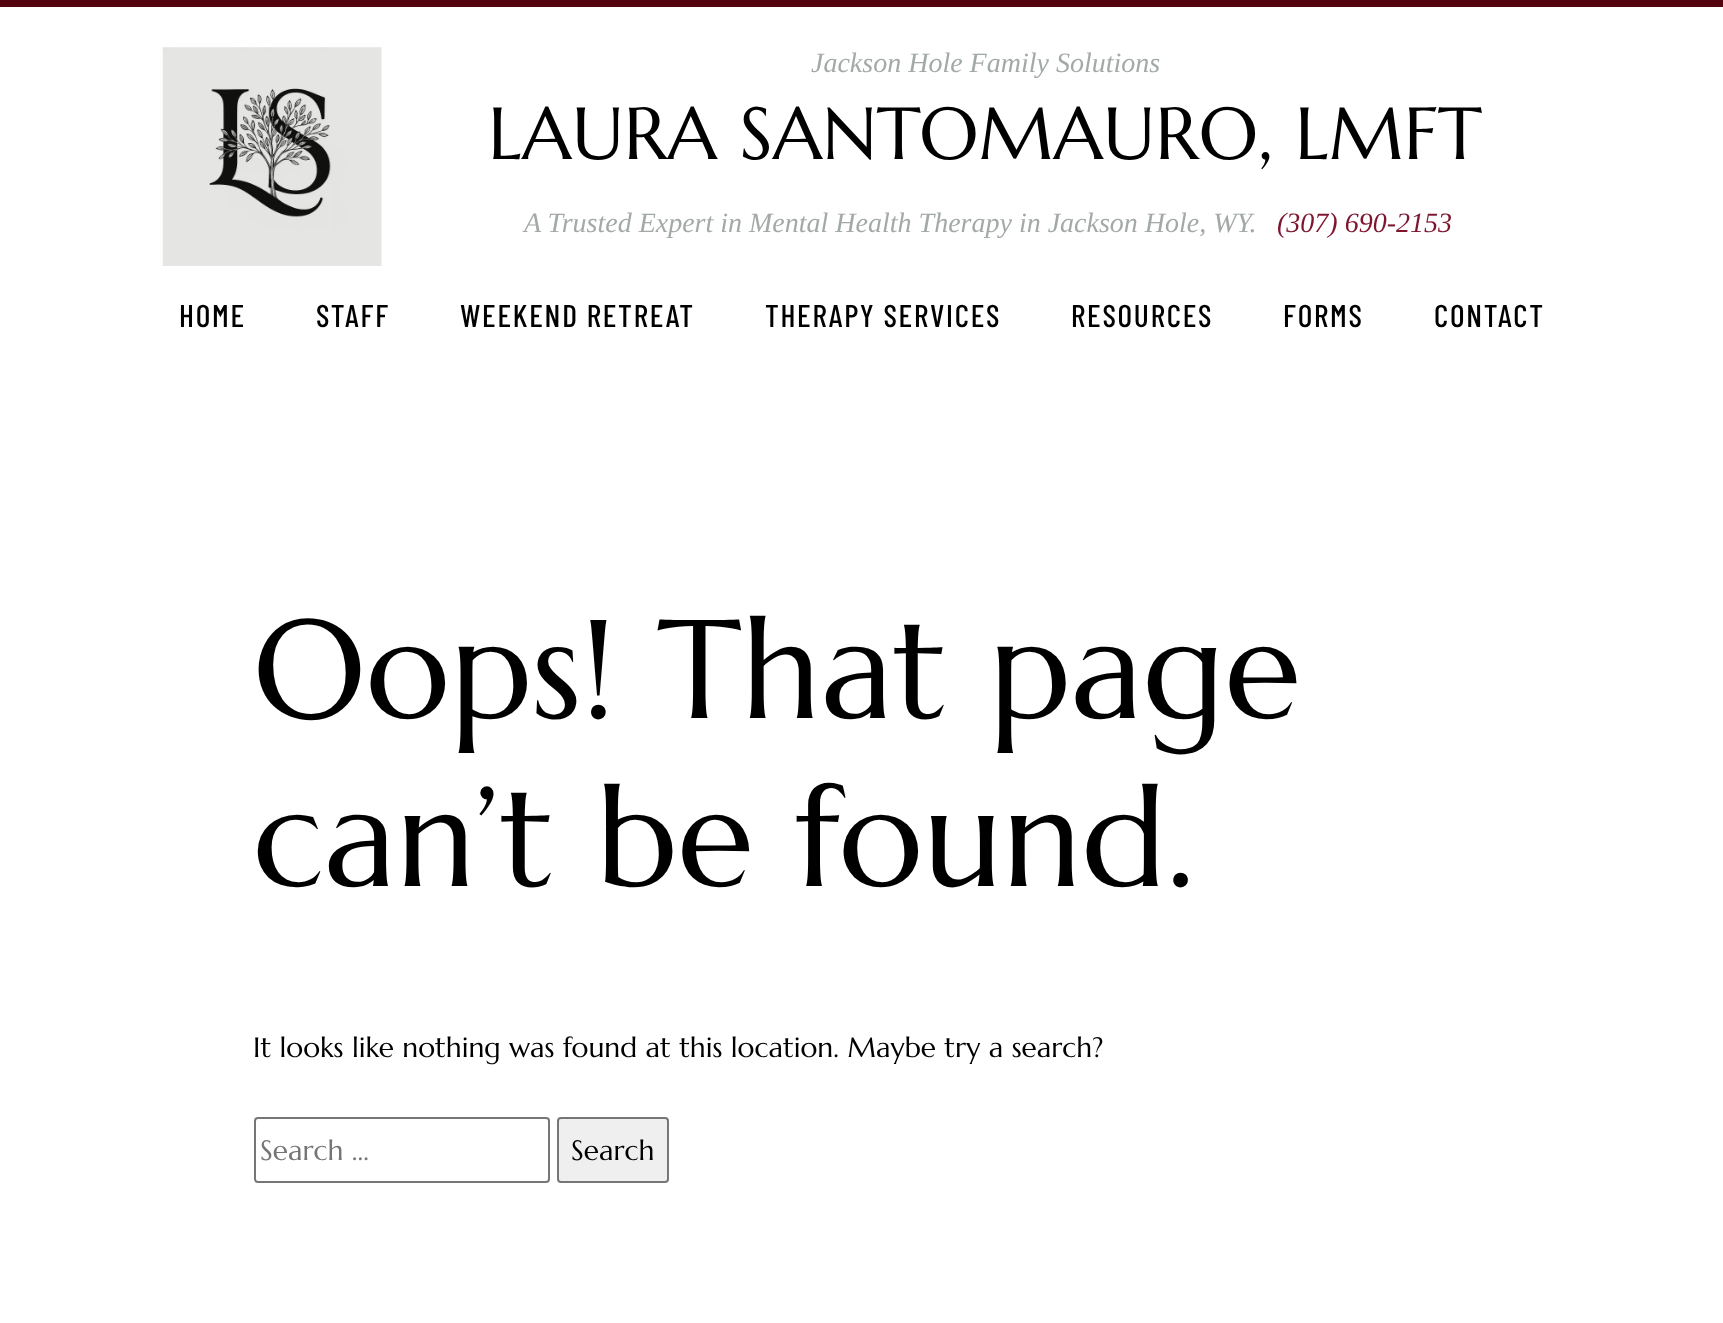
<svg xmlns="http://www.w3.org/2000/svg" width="1723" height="1323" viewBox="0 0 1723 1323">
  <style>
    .t1 { font: italic 28px Liberation Serif; fill: #a2a9a6; }
    .t2 { font: 73.5px Marcellus; fill: #000; }
    .t3 { font: italic 28px Liberation Serif; fill: #7f1630; }
    .t4 { font: 500 31.5px Barlow Condensed; letter-spacing: 1.75px; fill: #000; }
    .t5 { font: 140px Marcellus; fill: #000; }
    .t6 { font: 28px Marcellus; fill: #000; }
    .t7 { font: 28px Marcellus; fill: #757575; }
  </style>
  <rect width="100%" height="100%" fill="#fff"/>
  <rect x="0" y="0" width="1723" height="7" fill="#53040f"/>
  <image x="162" y="47" width="220" height="219" href="images/1.png"/>
  <text x="811" y="72" class="t1">Jackson Hole Family Solutions</text>
  <text x="488" y="159" class="t2">LAURA SANTOMAURO, LMFT</text>
  <text x="524" y="232" class="t1">A Trusted Expert in Mental Health Therapy in Jackson Hole, WY.</text>
  <text x="1277" y="232" class="t3">(307) 690-2153</text>
  <text x="179" y="327" class="t4">HOME</text>
  <text x="316" y="327" class="t4">STAFF</text>
  <text x="460" y="327" class="t4">WEEKEND RETREAT</text>
  <text x="765" y="327" class="t4">THERAPY SERVICES</text>
  <text x="1071" y="327" class="t4">RESOURCES</text>
  <text x="1283" y="327" class="t4">FORMS</text>
  <text x="1434" y="327" class="t4">CONTACT</text>
  <text x="253" y="718" class="t5">Oops! That page</text>
  <text x="253" y="886" class="t5">can’t be found.</text>
  <text x="253" y="1057" class="t6">It looks like nothing was found at this location. Maybe try a search?</text>
  <rect x="255" y="1118" width="294" height="64" rx="3" fill="none" stroke="#767676" stroke-width="2"/>
  <text x="260" y="1160" class="t7">Search …</text>
  <rect x="558" y="1118" width="110" height="64" rx="3" fill="#efefef" stroke="#767676" stroke-width="2"/>
  <text x="571" y="1160" class="t6">Search</text>
</svg>
